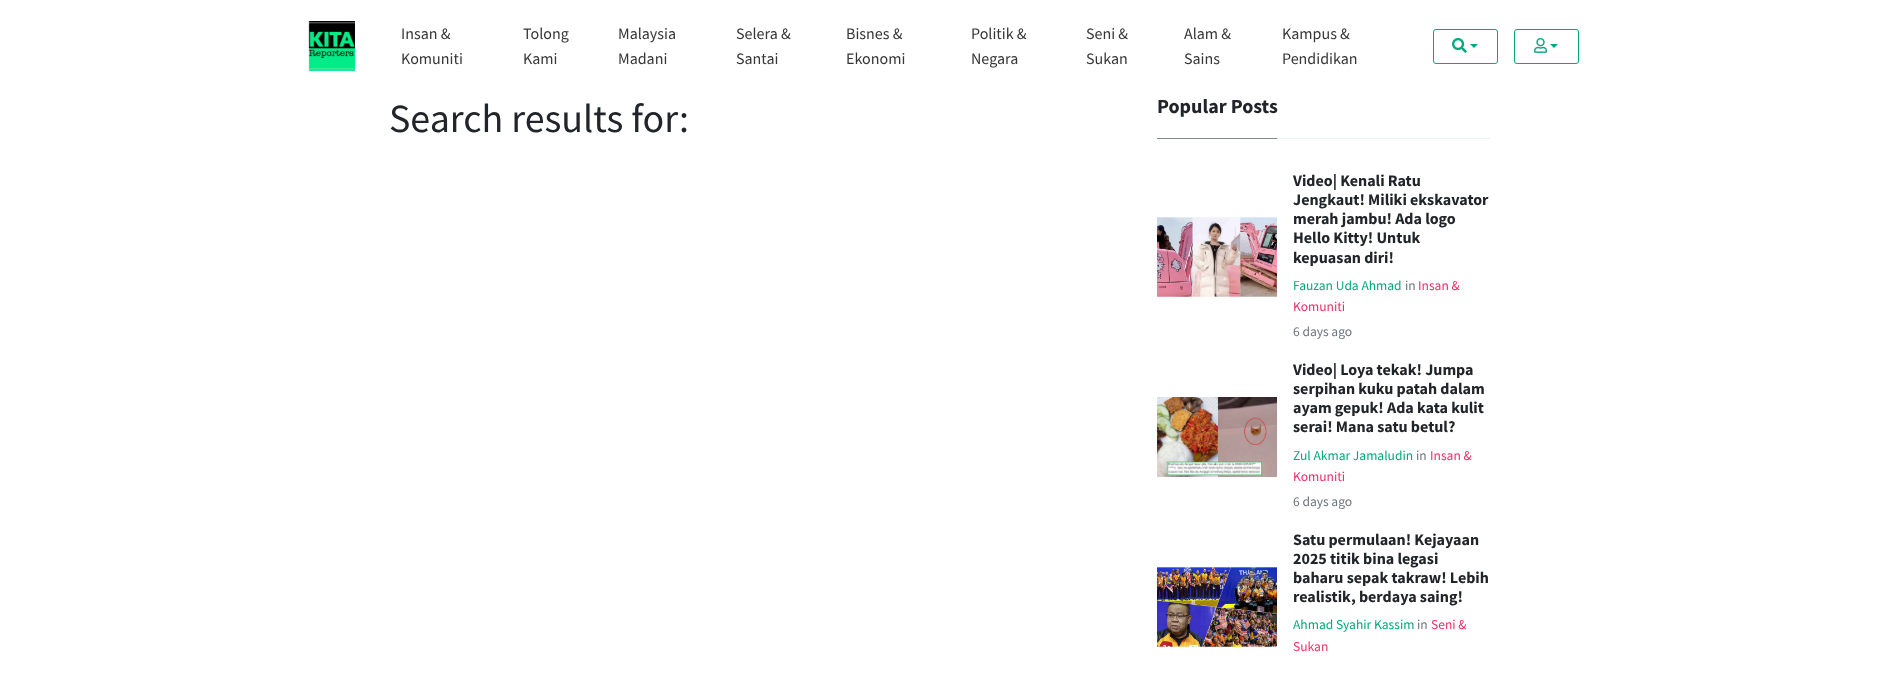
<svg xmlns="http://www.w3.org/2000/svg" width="1887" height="673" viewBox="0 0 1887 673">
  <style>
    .t1 { font: 16px Source Sans Pro; fill: #363636; }
    .t2 { font: 40px Source Sans Pro; fill: #212529; }
    .t3 { font: bold 20px Source Sans Pro; fill: #212529; }
    .t4 { font: bold 16px Source Sans Pro; fill: #212529; }
    .t5 { font: 13.5px Source Sans Pro; fill: #03a87c; }
    .t6 { font: 13.5px Source Sans Pro; fill: #6c757d; }
    .t7 { font: 13.5px Source Sans Pro; fill: #ea2f65; }
  </style>
  <rect width="100%" height="100%" fill="#fff"/>
  <image x="308" y="21" width="47" height="50" href="images/1.png"/>
  <text x="401" y="39" class="t1">Insan &amp;</text>
  <text x="401" y="64" class="t1">Komuniti</text>
  <text x="523" y="39" class="t1">Tolong</text>
  <text x="523" y="64" class="t1">Kami</text>
  <text x="618" y="39" class="t1">Malaysia</text>
  <text x="618" y="64" class="t1">Madani</text>
  <text x="736" y="39" class="t1">Selera &amp;</text>
  <text x="736" y="64" class="t1">Santai</text>
  <text x="846" y="39" class="t1">Bisnes &amp;</text>
  <text x="846" y="64" class="t1">Ekonomi</text>
  <text x="971" y="39" class="t1">Politik &amp;</text>
  <text x="971" y="64" class="t1">Negara</text>
  <text x="1086" y="39" class="t1">Seni &amp;</text>
  <text x="1086" y="64" class="t1">Sukan</text>
  <text x="1184" y="39" class="t1">Alam &amp;</text>
  <text x="1184" y="64" class="t1">Sains</text>
  <text x="1282" y="39" class="t1">Kampus &amp;</text>
  <text x="1282" y="64" class="t1">Pendidikan</text>
  <rect x="1433.5" y="29.5" width="64" height="34" rx="2.5" fill="none" stroke="#03a87c"/>
  <image x="1452" y="38" width="15" height="15" href="images/2.png"/>
  <path d="M1470 44H1478L1474 48Z" fill="#03a87c"/>
  <rect x="1514.5" y="29.5" width="64" height="34" rx="2.5" fill="none" stroke="#03a87c"/>
  <image x="1534" y="38" width="13" height="15" href="images/3.png"/>
  <path d="M1550 44H1558L1554 48Z" fill="#03a87c"/>
  <text x="389" y="132" class="t2">Search results for:</text>
  <rect x="1277" y="138" width="213" height="1" fill="#e8f3ec"/>
  <rect x="1157" y="138" width="120" height="1" fill="#828884"/>
  <text x="1157" y="113" class="t3">Popular Posts</text>
  <image x="1157" y="217" width="120" height="80" href="images/4.png"/>
  <text x="1293" y="186" class="t4">Video| Kenali Ratu</text>
  <text x="1293" y="205" class="t4">Jengkaut! Miliki ekskavator</text>
  <text x="1293" y="224" class="t4">merah jambu! Ada logo</text>
  <text x="1293" y="243" class="t4">Hello Kitty! Untuk</text>
  <text x="1293" y="263" class="t4">kepuasan diri!</text>
  <text x="1293" y="290" class="t5">Fauzan Uda Ahmad</text>
  <text x="1405" y="290" class="t6">in</text>
  <text x="1418" y="290" class="t7">Insan &amp;</text>
  <text x="1293" y="311" class="t7">Komuniti</text>
  <text x="1293" y="336" class="t6">6 days ago</text>
  <image x="1157" y="397" width="120" height="80" href="images/5.png"/>
  <text x="1293" y="375" class="t4">Video| Loya tekak! Jumpa</text>
  <text x="1293" y="394" class="t4">serpihan kuku patah dalam</text>
  <text x="1293" y="413" class="t4">ayam gepuk! Ada kata kulit</text>
  <text x="1293" y="432" class="t4">serai! Mana satu betul?</text>
  <text x="1293" y="460" class="t5">Zul Akmar Jamaludin</text>
  <text x="1416" y="460" class="t6">in</text>
  <text x="1430" y="460" class="t7">Insan &amp;</text>
  <text x="1293" y="481" class="t7">Komuniti</text>
  <text x="1293" y="506" class="t6">6 days ago</text>
  <image x="1157" y="567" width="120" height="80" href="images/6.png"/>
  <text x="1293" y="545" class="t4">Satu permulaan! Kejayaan</text>
  <text x="1293" y="564" class="t4">2025 titik bina legasi</text>
  <text x="1293" y="583" class="t4">baharu sepak takraw! Lebih</text>
  <text x="1293" y="602" class="t4">realistik, berdaya saing!</text>
  <text x="1293" y="629" class="t5">Ahmad Syahir Kassim</text>
  <text x="1417" y="629" class="t6">in</text>
  <text x="1431" y="629" class="t7">Seni &amp;</text>
  <text x="1293" y="651" class="t7">Sukan</text>
</svg>
